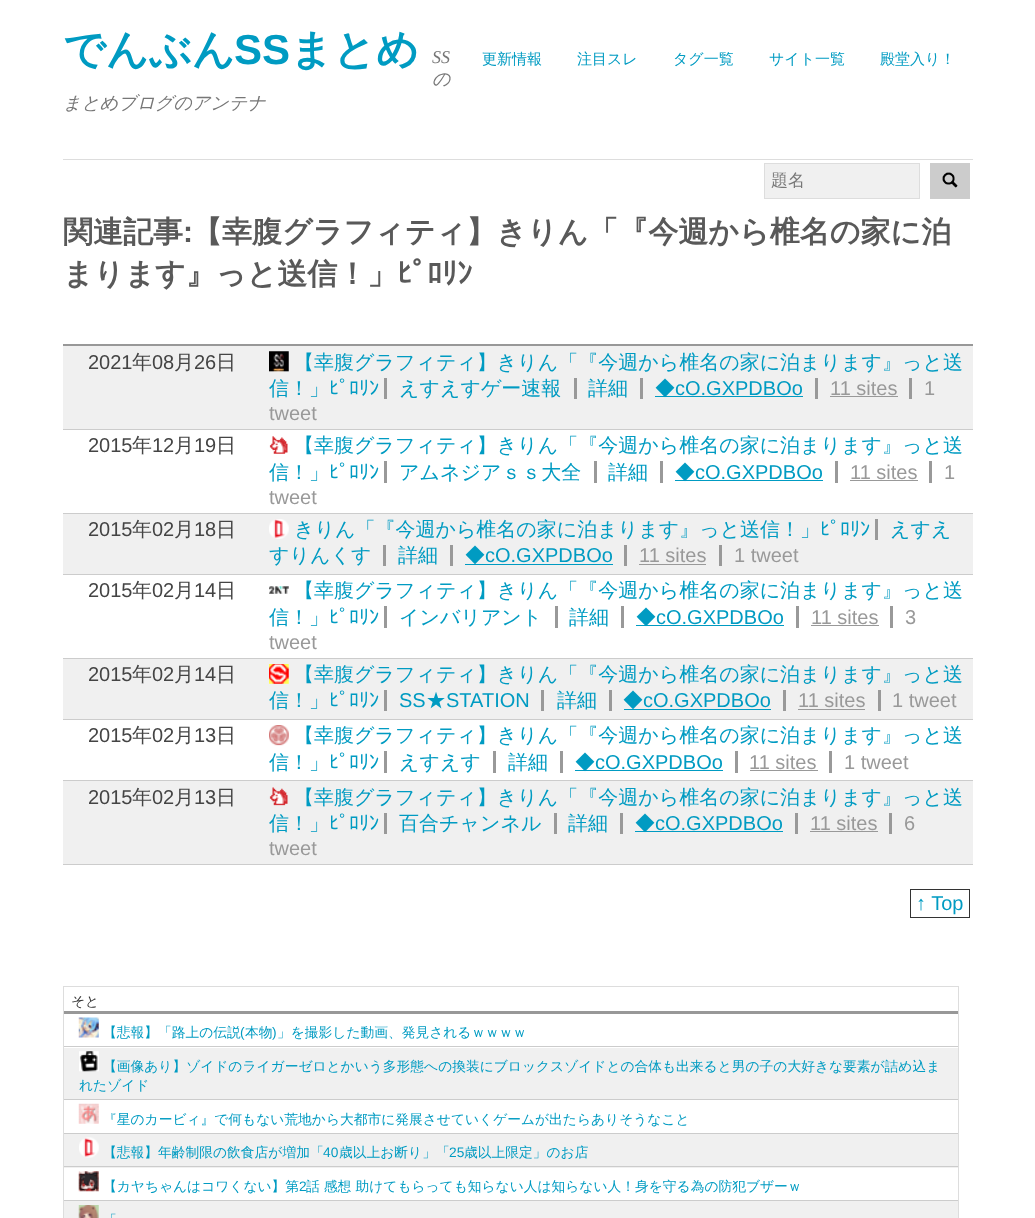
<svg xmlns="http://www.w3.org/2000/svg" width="1035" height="1218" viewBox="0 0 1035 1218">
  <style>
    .t1 { font: bold 42px WenQuanYi Zen Hei; fill: #009bc2; }
    .t2 { font: bold 42px Liberation Sans; fill: #009bc2; }
    .t3 { font: italic 18px Liberation Serif; fill: #777; }
    .t4 { font: italic 500 18px WenQuanYi Zen Hei; fill: #777; }
    .t5 { font: 500 15px WenQuanYi Zen Hei; fill: #009bc2; }
    .t6 { font: 500 17px WenQuanYi Zen Hei; fill: #777; }
    .t7 { font: bold 30px WenQuanYi Zen Hei; fill: #595959; }
    .t8 { font: bold 30px Liberation Sans; fill: #595959; }
    .t9 { font: bold 30px IPAPGothic; fill: #595959; }
    .t10 { font: 20px Liberation Sans; fill: #444; }
    .t11 { font: 500 20px WenQuanYi Zen Hei; fill: #444; }
    .t12 { font: 500 20px WenQuanYi Zen Hei; fill: #009bc2; }
    .t13 { font: 20px IPAPGothic; fill: #009bc2; }
    .t14 { font: 20px Liberation Sans; fill: #009bc2; }
    .t15 { font: 20px Liberation Sans; fill: #999; }
    .t16 { font: 500 13.75px WenQuanYi Zen Hei; fill: #333; }
    .t17 { font: 500 13.75px WenQuanYi Zen Hei; fill: #009bc2; }
    .t18 { font: 13.75px Liberation Sans; fill: #009bc2; }
  </style>
  <rect width="100%" height="100%" fill="#fff"/>
  <text x="63" y="64" class="t1">でんぶん</text>
  <text x="234" y="64" class="t2">SS</text>
  <text x="290" y="64" class="t1">まとめ</text>
  <text x="432" y="63" class="t3">SS</text>
  <text x="432" y="85" class="t4">の</text>
  <text x="63" y="109" class="t4">まとめブログのアンテナ</text>
  <text x="482" y="64" class="t5">更新情報</text>
  <text x="577" y="64" class="t5">注目スレ</text>
  <text x="673" y="64" class="t5">タグ一覧</text>
  <text x="769" y="64" class="t5">サイト一覧</text>
  <text x="880" y="64" class="t5">殿堂入り！</text>
  <rect x="63" y="159" width="910" height="1" fill="#ddd"/>
  <rect x="764.5" y="163.5" width="155" height="35" fill="#f0f0f0" stroke="#ddd"/>
  <text x="771" y="186" class="t6">題名</text>
  <rect x="930" y="163" width="40" height="36" fill="#ccc"/>
  <image x="942" y="172" width="16" height="16" href="images/1.png"/>
  <text x="63" y="242" class="t7">関連記事</text>
  <text x="183" y="242" class="t8">:</text>
  <text x="192" y="242" class="t7">【幸腹グラフィティ】きりん「『今週から椎名の家に泊</text>
  <text x="63" y="284" class="t7">まります』っと送信！」</text>
  <text x="397" y="284" class="t9">ﾋﾟﾛﾘﾝ</text>
  <rect x="63" y="344" width="910" height="2" fill="#989898"/>
  <rect x="63" y="346" width="910" height="83" fill="#f0f0f0"/>
  <rect x="63" y="429" width="910" height="1" fill="#ccc"/>
  <text x="88" y="369" class="t10">2021</text>
  <text x="132" y="369" class="t11">年</text>
  <text x="152" y="369" class="t10">08</text>
  <text x="174" y="369" class="t11">月</text>
  <text x="194" y="369" class="t10">26</text>
  <text x="216" y="369" class="t11">日</text>
  <image x="269" y="351" width="20" height="21" href="images/2.png"/>
  <text x="294" y="369" class="t12">【幸腹グラフィティ】きりん「『今週から椎名の家に泊まります』っと送</text>
  <text x="269" y="395" class="t12">信！」</text>
  <text x="329" y="395" class="t13">ﾋﾟﾛﾘﾝ</text>
  <text x="399" y="395" class="t12">えすえすゲー速報</text>
  <rect x="384" y="378" width="3" height="21" fill="#999"/>
  <text x="588" y="395" class="t12">詳細</text>
  <rect x="574" y="378" width="3" height="21" fill="#999"/>
  <rect x="655" y="396" width="148" height="1" fill="#009bc2"/>
  <text x="655" y="395" class="t12">◆</text>
  <rect x="640" y="378" width="3" height="21" fill="#999"/>
  <text x="675" y="395" class="t14">cO.GXPDBOo</text>
  <text x="830" y="395" class="t15">11 sites</text>
  <rect x="815" y="378" width="3" height="21" fill="#999"/>
  <rect x="830" y="396" width="68" height="1" fill="#999"/>
  <text x="924" y="395" class="t15">1</text>
  <rect x="909" y="378" width="3" height="21" fill="#999"/>
  <text x="269" y="420" class="t15">tweet</text>
  <rect x="63" y="513" width="910" height="1" fill="#ccc"/>
  <text x="88" y="452" class="t10">2015</text>
  <text x="132" y="452" class="t11">年</text>
  <text x="152" y="452" class="t10">12</text>
  <text x="174" y="452" class="t11">月</text>
  <text x="194" y="452" class="t10">19</text>
  <text x="216" y="452" class="t11">日</text>
  <image x="269" y="436" width="19" height="18" href="images/3.png"/>
  <text x="294" y="452" class="t12">【幸腹グラフィティ】きりん「『今週から椎名の家に泊まります』っと送</text>
  <text x="269" y="479" class="t12">信！」</text>
  <text x="329" y="479" class="t13">ﾋﾟﾛﾘﾝ</text>
  <text x="399" y="479" class="t12">アムネジアｓｓ大全</text>
  <rect x="384" y="461" width="3" height="22" fill="#999"/>
  <text x="608" y="479" class="t12">詳細</text>
  <rect x="594" y="461" width="3" height="22" fill="#999"/>
  <rect x="675" y="480" width="148" height="1" fill="#009bc2"/>
  <text x="675" y="479" class="t12">◆</text>
  <rect x="660" y="461" width="3" height="22" fill="#999"/>
  <text x="695" y="479" class="t14">cO.GXPDBOo</text>
  <text x="850" y="479" class="t15">11 sites</text>
  <rect x="835" y="461" width="3" height="22" fill="#999"/>
  <rect x="850" y="480" width="68" height="1" fill="#999"/>
  <text x="944" y="479" class="t15">1</text>
  <rect x="929" y="461" width="3" height="22" fill="#999"/>
  <text x="269" y="504" class="t15">tweet</text>
  <rect x="63" y="514" width="910" height="60" fill="#f0f0f0"/>
  <rect x="63" y="574" width="910" height="1" fill="#ccc"/>
  <text x="88" y="536" class="t10">2015</text>
  <text x="132" y="536" class="t11">年</text>
  <text x="152" y="536" class="t10">02</text>
  <text x="174" y="536" class="t11">月</text>
  <text x="194" y="536" class="t10">18</text>
  <text x="216" y="536" class="t11">日</text>
  <image x="269" y="519" width="20" height="20" href="images/4.png"/>
  <text x="294" y="536" class="t12">きりん「『今週から椎名の家に泊まります』っと送信！」</text>
  <text x="820" y="536" class="t13">ﾋﾟﾛﾘﾝ</text>
  <text x="890" y="536" class="t12">えすえ</text>
  <rect x="875" y="519" width="3" height="21" fill="#999"/>
  <text x="269" y="562" class="t12">すりんくす</text>
  <text x="398" y="562" class="t12">詳細</text>
  <rect x="383" y="545" width="3" height="21" fill="#999"/>
  <rect x="465" y="564" width="148" height="1" fill="#009bc2"/>
  <text x="465" y="562" class="t12">◆</text>
  <rect x="450" y="545" width="3" height="21" fill="#999"/>
  <text x="485" y="562" class="t14">cO.GXPDBOo</text>
  <text x="639" y="562" class="t15">11 sites</text>
  <rect x="624" y="545" width="3" height="21" fill="#999"/>
  <rect x="639" y="564" width="67" height="1" fill="#999"/>
  <text x="734" y="562" class="t15">1 tweet</text>
  <rect x="719" y="545" width="3" height="21" fill="#999"/>
  <rect x="63" y="658" width="910" height="1" fill="#ccc"/>
  <text x="88" y="597" class="t10">2015</text>
  <text x="132" y="597" class="t11">年</text>
  <text x="152" y="597" class="t10">02</text>
  <text x="174" y="597" class="t11">月</text>
  <text x="194" y="597" class="t10">14</text>
  <text x="216" y="597" class="t11">日</text>
  <image x="269" y="586" width="20" height="8" href="images/5.png"/>
  <text x="294" y="597" class="t12">【幸腹グラフィティ】きりん「『今週から椎名の家に泊まります』っと送</text>
  <text x="269" y="624" class="t12">信！」</text>
  <text x="329" y="624" class="t13">ﾋﾟﾛﾘﾝ</text>
  <text x="399" y="624" class="t12">インバリアント</text>
  <rect x="384" y="606" width="3" height="22" fill="#999"/>
  <text x="569" y="624" class="t12">詳細</text>
  <rect x="555" y="606" width="3" height="22" fill="#999"/>
  <rect x="636" y="625" width="148" height="1" fill="#009bc2"/>
  <text x="636" y="624" class="t12">◆</text>
  <rect x="621" y="606" width="3" height="22" fill="#999"/>
  <text x="656" y="624" class="t14">cO.GXPDBOo</text>
  <text x="811" y="624" class="t15">11 sites</text>
  <rect x="796" y="606" width="3" height="22" fill="#999"/>
  <rect x="811" y="625" width="68" height="1" fill="#999"/>
  <text x="905" y="624" class="t15">3</text>
  <rect x="890" y="606" width="3" height="22" fill="#999"/>
  <text x="269" y="649" class="t15">tweet</text>
  <rect x="63" y="659" width="910" height="60" fill="#f0f0f0"/>
  <rect x="63" y="719" width="910" height="1" fill="#ccc"/>
  <text x="88" y="681" class="t10">2015</text>
  <text x="132" y="681" class="t11">年</text>
  <text x="152" y="681" class="t10">02</text>
  <text x="174" y="681" class="t11">月</text>
  <text x="194" y="681" class="t10">14</text>
  <text x="216" y="681" class="t11">日</text>
  <image x="269" y="664" width="20" height="20" href="images/6.png"/>
  <text x="294" y="681" class="t12">【幸腹グラフィティ】きりん「『今週から椎名の家に泊まります』っと送</text>
  <text x="269" y="707" class="t12">信！」</text>
  <text x="329" y="707" class="t13">ﾋﾟﾛﾘﾝ</text>
  <text x="399" y="707" class="t14">SS</text>
  <rect x="384" y="690" width="3" height="21" fill="#999"/>
  <text x="426" y="707" class="t12">★</text>
  <text x="446" y="707" class="t14">STATION</text>
  <text x="557" y="707" class="t12">詳細</text>
  <rect x="541" y="690" width="3" height="21" fill="#999"/>
  <rect x="624" y="709" width="147" height="1" fill="#009bc2"/>
  <text x="623" y="707" class="t12">◆</text>
  <rect x="609" y="690" width="3" height="21" fill="#999"/>
  <text x="643" y="707" class="t14">cO.GXPDBOo</text>
  <text x="798" y="707" class="t15">11 sites</text>
  <rect x="783" y="690" width="3" height="21" fill="#999"/>
  <rect x="798" y="709" width="67" height="1" fill="#999"/>
  <text x="892" y="707" class="t15">1 tweet</text>
  <rect x="878" y="690" width="3" height="21" fill="#999"/>
  <rect x="63" y="780" width="910" height="1" fill="#ccc"/>
  <text x="88" y="742" class="t10">2015</text>
  <text x="132" y="742" class="t11">年</text>
  <text x="152" y="742" class="t10">02</text>
  <text x="174" y="742" class="t11">月</text>
  <text x="194" y="742" class="t10">13</text>
  <text x="216" y="742" class="t11">日</text>
  <image x="269" y="725" width="20" height="21" href="images/7.png"/>
  <text x="294" y="742" class="t12">【幸腹グラフィティ】きりん「『今週から椎名の家に泊まります』っと送</text>
  <text x="269" y="769" class="t12">信！」</text>
  <text x="329" y="769" class="t13">ﾋﾟﾛﾘﾝ</text>
  <text x="399" y="769" class="t12">えすえす</text>
  <rect x="384" y="751" width="3" height="22" fill="#999"/>
  <text x="508" y="769" class="t12">詳細</text>
  <rect x="493" y="751" width="3" height="22" fill="#999"/>
  <rect x="575" y="770" width="148" height="1" fill="#009bc2"/>
  <text x="575" y="769" class="t12">◆</text>
  <rect x="560" y="751" width="3" height="22" fill="#999"/>
  <text x="595" y="769" class="t14">cO.GXPDBOo</text>
  <text x="749" y="769" class="t15">11 sites</text>
  <rect x="735" y="751" width="3" height="22" fill="#999"/>
  <rect x="750" y="770" width="68" height="1" fill="#999"/>
  <text x="844" y="769" class="t15">1 tweet</text>
  <rect x="829" y="751" width="3" height="22" fill="#999"/>
  <rect x="63" y="781" width="910" height="83" fill="#f0f0f0"/>
  <rect x="63" y="864" width="910" height="1" fill="#ccc"/>
  <text x="88" y="804" class="t10">2015</text>
  <text x="132" y="804" class="t11">年</text>
  <text x="152" y="804" class="t10">02</text>
  <text x="174" y="804" class="t11">月</text>
  <text x="194" y="804" class="t10">13</text>
  <text x="216" y="804" class="t11">日</text>
  <image x="269" y="787" width="19" height="19" href="images/8.png"/>
  <text x="294" y="804" class="t12">【幸腹グラフィティ】きりん「『今週から椎名の家に泊まります』っと送</text>
  <text x="269" y="830" class="t12">信！」</text>
  <text x="329" y="830" class="t13">ﾋﾟﾛﾘﾝ</text>
  <text x="399" y="830" class="t12">百合チャンネル</text>
  <rect x="384" y="813" width="3" height="21" fill="#999"/>
  <text x="568" y="830" class="t12">詳細</text>
  <rect x="554" y="813" width="3" height="21" fill="#999"/>
  <rect x="635" y="831" width="148" height="1" fill="#009bc2"/>
  <text x="635" y="830" class="t12">◆</text>
  <rect x="620" y="813" width="3" height="21" fill="#999"/>
  <text x="655" y="830" class="t14">cO.GXPDBOo</text>
  <text x="810" y="830" class="t15">11 sites</text>
  <rect x="795" y="813" width="3" height="21" fill="#999"/>
  <rect x="810" y="831" width="68" height="1" fill="#999"/>
  <text x="904" y="830" class="t15">6</text>
  <rect x="889" y="813" width="3" height="21" fill="#999"/>
  <text x="269" y="855" class="t15">tweet</text>
  <rect x="910.5" y="889.5" width="59" height="28" fill="none" stroke="#333"/>
  <text x="916" y="910" class="t14">↑ Top</text>
  <rect x="63.5" y="986.5" width="895" height="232" fill="none" stroke="#ddd"/>
  <rect x="64" y="1011" width="894" height="3" fill="#989898"/>
  <text x="71" y="1006" class="t16">そと</text>
  <rect x="64" y="1046" width="894" height="1" fill="#ccc"/>
  <image x="78" y="1017" width="21" height="21" href="images/9.png"/>
  <text x="103" y="1037" class="t17">【悲報】「路上の伝説</text>
  <text x="240" y="1037" class="t18">(</text>
  <text x="245" y="1037" class="t17">本物</text>
  <text x="272" y="1037" class="t18">)</text>
  <text x="277" y="1037" class="t17">」を撮影した動画、発見されるｗｗｗｗ</text>
  <rect x="64" y="1048" width="894" height="51" fill="#f0f0f0"/>
  <rect x="64" y="1099" width="894" height="1" fill="#ccc"/>
  <image x="79" y="1051" width="20" height="21" href="images/10.png"/>
  <text x="103" y="1071" class="t17">【画像あり】ゾイドのライガーゼロとかいう多形態への換装にブロックスゾイドとの合体も出来ると男の子の大好きな要素が詰め込ま</text>
  <text x="79" y="1090" class="t17">れたゾイド</text>
  <rect x="64" y="1133" width="894" height="1" fill="#ccc"/>
  <image x="78" y="1103" width="21" height="21" href="images/11.png"/>
  <text x="103" y="1124" class="t17">『星のカービィ』で何もない荒地から大都市に発展させていくゲームが出たらありそうなこと</text>
  <rect x="64" y="1134" width="894" height="34" fill="#f0f0f0"/>
  <rect x="64" y="1166" width="894" height="1" fill="#ccc"/>
  <image x="79" y="1137" width="20" height="21" href="images/12.png"/>
  <text x="103" y="1157" class="t17">【悲報】年齢制限の飲食店が増加「</text>
  <text x="323" y="1157" class="t18">40</text>
  <text x="339" y="1157" class="t17">歳以上お断り」「</text>
  <text x="449" y="1157" class="t18">25</text>
  <text x="464" y="1157" class="t17">歳以上限定」のお店</text>
  <rect x="64" y="1200" width="894" height="1" fill="#ccc"/>
  <image x="78" y="1171" width="21" height="21" href="images/13.png"/>
  <text x="103" y="1191" class="t17">【カヤちゃんはコワくない】第</text>
  <text x="299" y="1191" class="t18">2</text>
  <text x="306" y="1191" class="t17">話 感想 助けてもらっても知らない人は知らない人！身を守る為の防犯ブザーｗ</text>
  <rect x="64" y="1201" width="894" height="17" fill="#f0f0f0"/>
  <image x="78" y="1205" width="21" height="13" href="images/14.png"/>
  <text x="103" y="1225" class="t17">「</text>
</svg>
